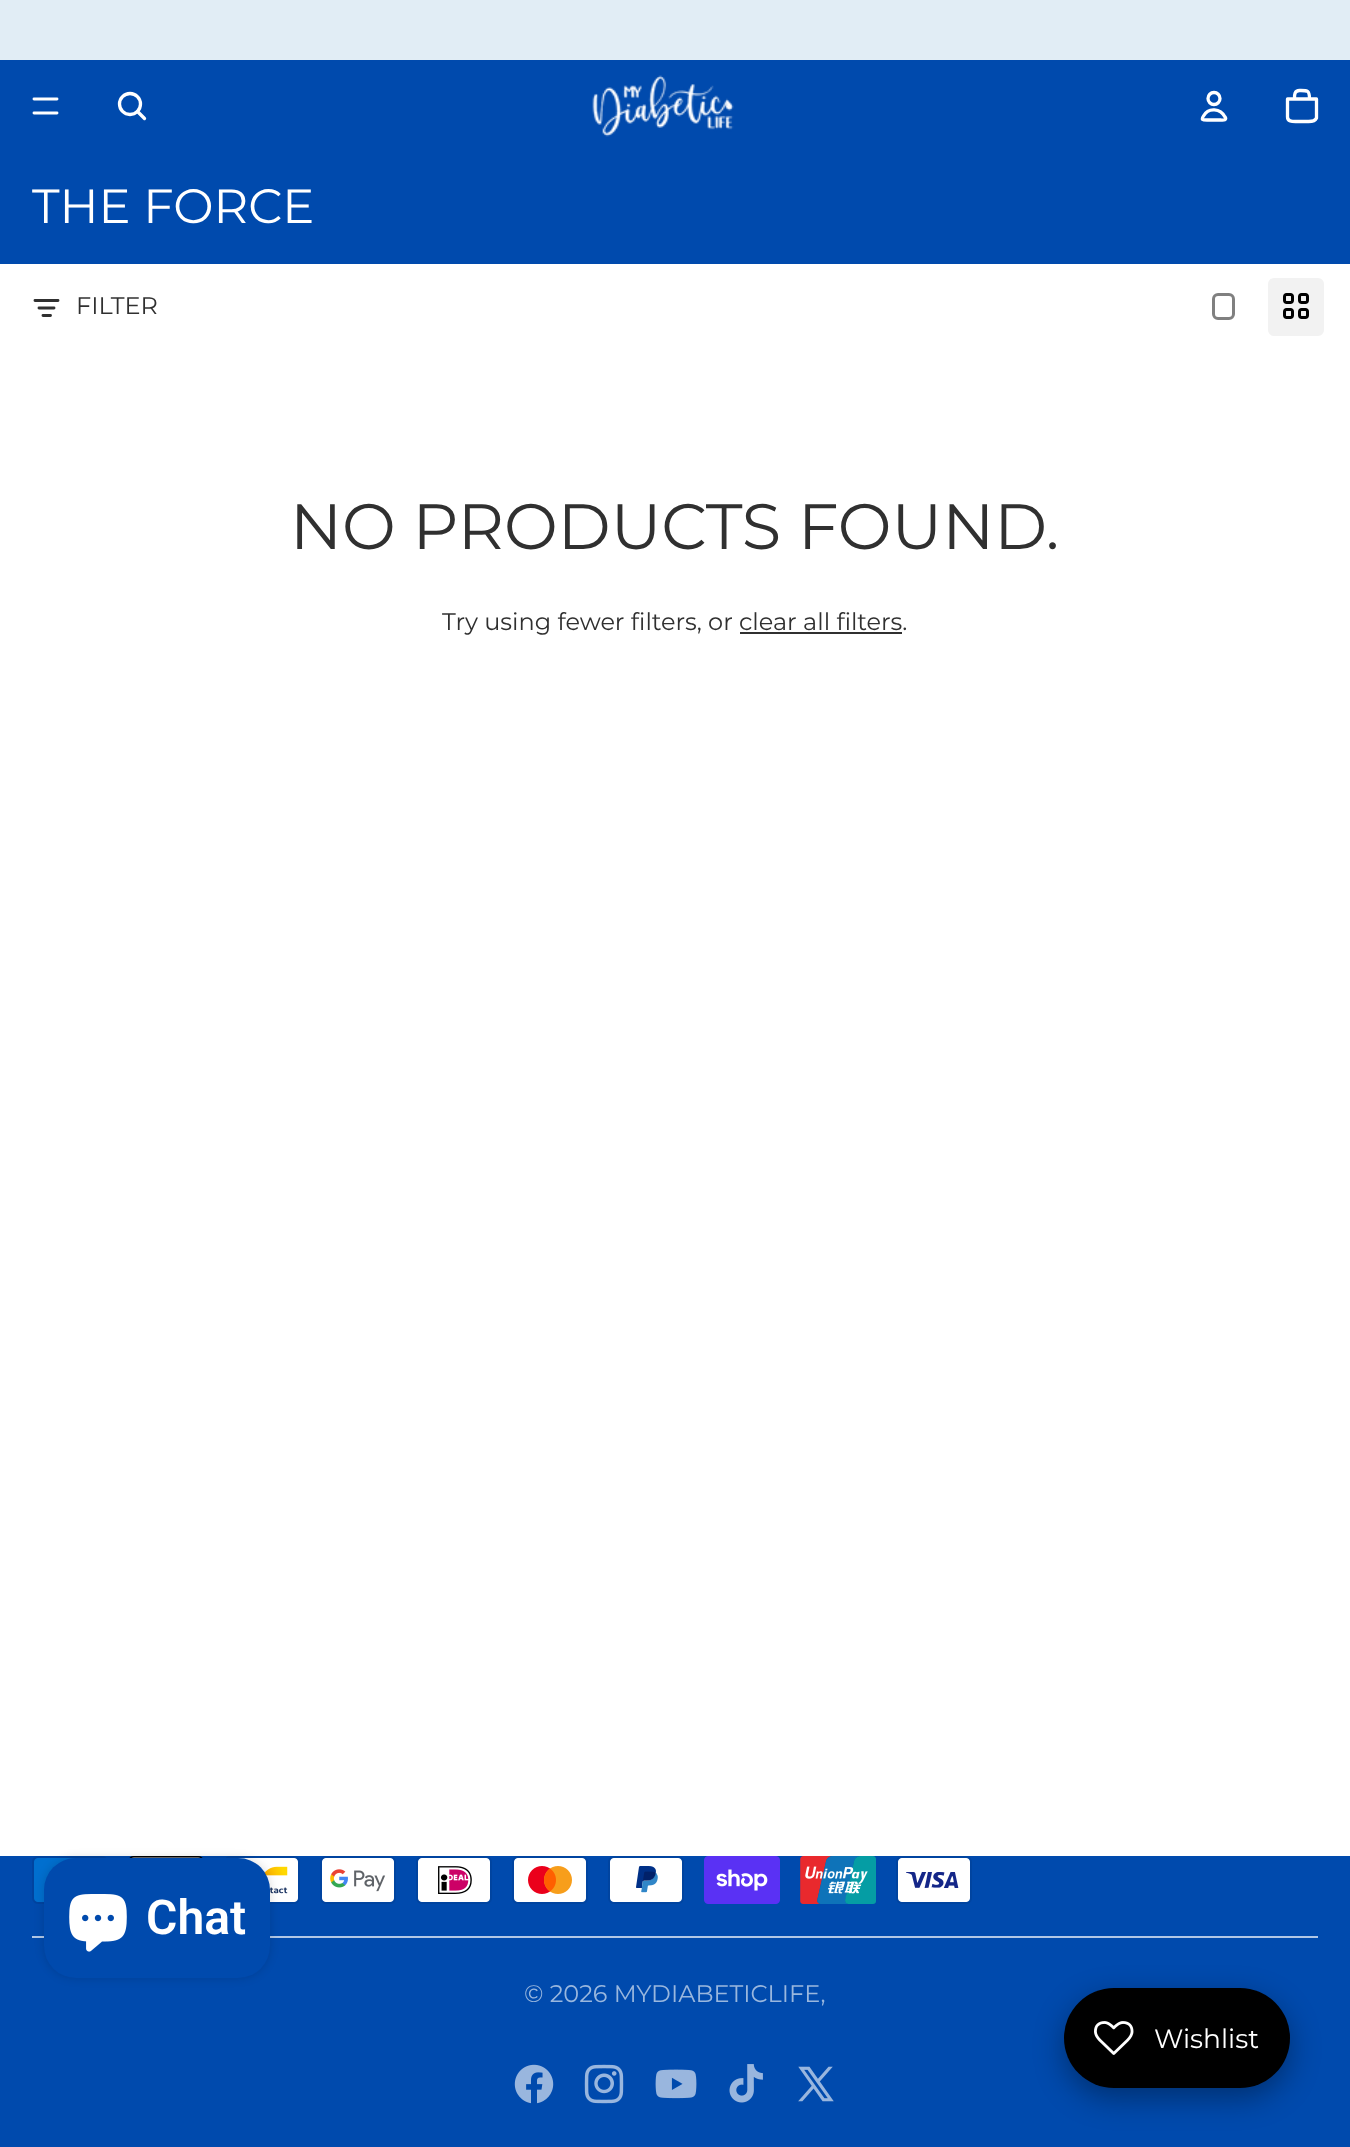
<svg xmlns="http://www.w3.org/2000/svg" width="1350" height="2147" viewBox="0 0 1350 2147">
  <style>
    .t1 { font: 48px Montserrat; fill: #fff; }
    .t2 { font: 24px Montserrat; fill: #303030; }
    .t3 { font: 64px Montserrat; fill: #303030; }
    .t4 { font: 600 48px Roboto; fill: #fff; }
    .t5 { font: 24px Montserrat; fill: #99b7de; }
    .t6 { font: 26.5px Montserrat; fill: #fff; }
  </style>
  <rect width="100%" height="100%" fill="#fff"/>
  <rect x="0" y="0" width="1350" height="60" fill="#e1edf5"/>
  <rect x="0" y="60" width="1350" height="204" fill="#004aad"/>
  <path d="M34 99H57M34 113H57" fill="none" stroke="#fff" stroke-width="2.9" stroke-linecap="round"/>
  <circle cx="130" cy="104" r="10.5" fill="none" stroke="#fff" stroke-width="3.3"/>
  <path d="M137.5 111.5L144.5 118.5" fill="none" stroke="#fff" stroke-width="3.3" stroke-linecap="round" stroke-linejoin="round"/>
  <image x="592" y="75" width="142" height="62" href="images/1.png"/>
  <circle cx="1214" cy="98.5" r="6" fill="none" stroke="#fff" stroke-width="3.3"/>
  <path d="M1203.5 116C1201 120 1202.5 120 1207 120H1221C1221.5 120 1225 120.5 1225.5 119C1226 118.5 1225.5 117.5 1225 117C1220.5 108.5 1208.5 107 1203.5 116" fill="none" stroke="#fff" stroke-width="3.3" stroke-linecap="round" stroke-linejoin="round"/>
  <path d="M1287.5 99H1316.5V118C1315 121.5 1311.5 121.5 1308.5 121.5H1295.5C1292 121.5 1287.5 121.5 1287.5 117ZM1299.5 90.5C1307.5 90.5 1309.5 90 1309.5 99H1294.5C1294.5 95.5 1294 90.5 1299.5 90.5" fill="none" stroke="#fff" stroke-width="3.3" stroke-linecap="round" stroke-linejoin="round"/>
  <text x="32" y="223" class="t1">THE FORCE</text>
  <path d="M58 300.5H35M54 308H39M43 315.5H50.5" fill="none" stroke="#303030" stroke-width="2.9" stroke-linecap="round"/>
  <text x="76" y="314" class="t2">FILTER</text>
  <rect x="1213.5" y="294.5" width="20" height="24" rx="4.5" fill="none" stroke="#808080" stroke-width="3"/>
  <rect x="1268" y="278" width="56" height="58" rx="6" fill="#f2f2f2"/>
  <image x="1283" y="293" width="26" height="26" href="images/2.png"/>
  <text x="290" y="549" class="t3">NO PRODUCTS FOUND.</text>
  <text x="442" y="630" class="t2">Try using fewer filters, or clear all filters.</text>
  <rect x="740" y="632" width="162" height="2" fill="#303030"/>
  <rect x="0" y="1856" width="1350" height="291" fill="#004aad"/>
  <image x="32" y="1856" width="74" height="48" href="images/3.png"/>
  <image x="129" y="1856" width="74" height="2" href="images/4.png"/>
  <image x="226" y="1856" width="74" height="48" href="images/5.png"/>
  <image x="320" y="1856" width="76" height="48" href="images/6.png"/>
  <image x="416" y="1856" width="76" height="48" href="images/7.png"/>
  <image x="512" y="1856" width="76" height="48" href="images/8.png"/>
  <image x="608" y="1856" width="76" height="48" href="images/9.png"/>
  <image x="704" y="1856" width="76" height="48" href="images/10.png"/>
  <image x="800" y="1856" width="76" height="48" href="images/11.png"/>
  <image x="896" y="1856" width="76" height="48" href="images/12.png"/>
  <rect x="32" y="1936" width="1286" height="2" fill="#b0c7e6"/>
  <rect x="44" y="1858" width="226" height="120" rx="32" fill="#00000026" filter="blur(5px)"/>
  <rect x="44" y="1858" width="226" height="120" rx="32" fill="#004aad"/>
  <image x="69" y="1894" width="58" height="58" href="images/13.png"/>
  <text x="146" y="1934" class="t4">Chat</text>
  <text x="524" y="2002" class="t5">© 2026 MYDIABETICLIFE,</text>
  <image x="514" y="2064" width="40" height="40" href="images/14.png"/>
  <image x="584" y="2064" width="40" height="40" href="images/15.png"/>
  <image x="655" y="2069" width="42" height="30" href="images/16.png"/>
  <image x="729" y="2064" width="34" height="39" href="images/17.png"/>
  <image x="798" y="2066" width="36" height="36" href="images/18.png"/>
  <rect x="1064" y="1998" width="226" height="100" rx="50" fill="#00000059" filter="blur(15px)"/>
  <rect x="1064" y="1988" width="226" height="100" rx="50" fill="#000"/>
  <image x="1094" y="2021" width="40" height="34" href="images/19.png"/>
  <text x="1154" y="2048" class="t6">Wishlist</text>
</svg>
